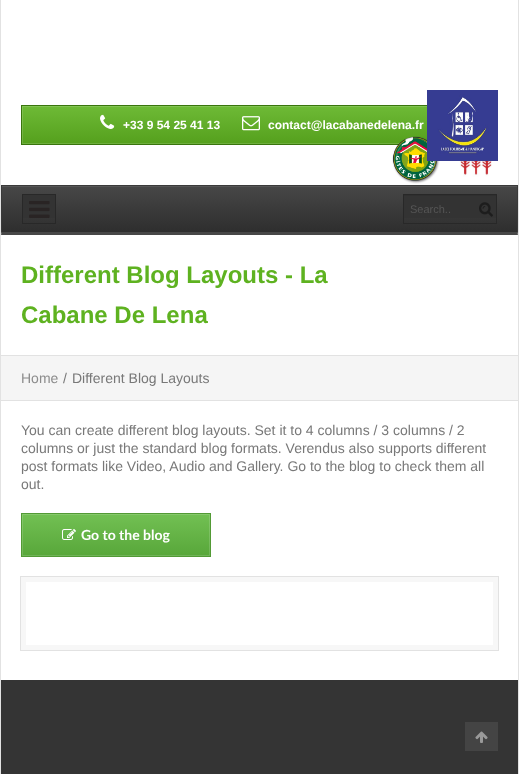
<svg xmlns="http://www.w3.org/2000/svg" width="519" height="774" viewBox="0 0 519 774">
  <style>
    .t1 { font: bold 12px Liberation Sans; fill: #fff; }
    .t2 { font: 11px Liberation Sans; fill: #555; }
    .t3 { font: bold 24px Liberation Sans; fill: #5eb220; }
    .t4 { font: 14px Liberation Sans; fill: #8c8c8c; }
    .t5 { font: 14px Liberation Sans; fill: #787878; }
    .t6 { font: bold 14px Lato; fill: #fff; }
  </style>
  <defs>
    <linearGradient id="g1" gradientUnits="userSpaceOnUse" x1="260" y1="144" x2="260" y2="106"><stop offset="0" stop-color="#55a01d"/><stop offset="1" stop-color="#6eba36"/></linearGradient>
    <linearGradient id="g2" gradientUnits="userSpaceOnUse" x1="260" y1="232" x2="260" y2="186"><stop offset="0" stop-color="#2e2e2e"/><stop offset="1" stop-color="#474747"/></linearGradient>
    <linearGradient id="g3" gradientUnits="userSpaceOnUse" x1="116" y1="556" x2="116" y2="514"><stop offset="0" stop-color="#58a73a"/><stop offset="1" stop-color="#72c053"/></linearGradient>
  </defs>
  <rect width="100%" height="100%" fill="#fff"/>
  <rect x="518" y="0" width="1" height="774" fill="#e2e2e2"/>
  <rect x="0" y="0" width="1" height="774" fill="#e2e2e2"/>
  <rect x="22" y="106" width="405" height="38" fill="url(#g1)"/>
  <rect x="22.5" y="106.5" width="474" height="37" fill="none" stroke="#ffffff26"/>
  <rect x="21.5" y="105.5" width="476" height="39" fill="none" stroke="#39750d"/>
  <image x="100" y="114" width="15" height="15" href="images/1.png"/>
  <text x="123" y="129" class="t1">+33 9 54 25 41 13</text>
  <image x="242" y="116" width="18" height="15" href="images/2.png"/>
  <text x="268" y="129" class="t1">contact@lacabanedelena.fr</text>
  <image x="392" y="136" width="48" height="48" href="images/3.png"/>
  <image x="427" y="90" width="71" height="71" href="images/4.png"/>
  <image x="454" y="161" width="44" height="16" href="images/5.png"/>
  <rect x="2" y="187" width="515" height="45" fill="url(#g2)"/>
  <rect x="2" y="186" width="515" height="1" fill="#565656"/>
  <rect x="1" y="185" width="517" height="1" fill="#3a3a3a"/>
  <path d="M518 185V235L517 232V186Z" fill="#3a3a3a"/>
  <path d="M518 235H1L2 232H517Z" fill="#474747"/>
  <path d="M1 235V185L2 186V232Z" fill="#3a3a3a"/>
  <rect x="23" y="195" width="32" height="23" fill="#333"/>
  <rect x="22.5" y="194.5" width="33" height="29" fill="none" stroke="#282828"/>
  <image x="29" y="201" width="21" height="17" href="images/6.png"/>
  <rect x="404" y="196" width="92" height="22" fill="#333"/>
  <image x="479" y="202" width="14" height="15" href="images/7.png"/>
  <rect x="404" y="195" width="92" height="1" fill="#2f2f2f"/>
  <rect x="403.5" y="194.5" width="93" height="29" fill="none" stroke="#282828"/>
  <text x="410" y="213" class="t2">Search..</text>
  <text x="21" y="283" class="t3">Different Blog Layouts - La</text>
  <text x="21" y="323" class="t3">Cabane De Lena</text>
  <rect x="1" y="356" width="517" height="44" fill="#f5f5f5"/>
  <rect x="1" y="355" width="517" height="1" fill="#e2e2e2"/>
  <rect x="1" y="400" width="517" height="1" fill="#e2e2e2"/>
  <text x="21" y="383" class="t4">Home</text>
  <text x="63" y="383" class="t5">/</text>
  <text x="72" y="383" class="t5">Different Blog Layouts</text>
  <text x="21" y="435" class="t5">You can create different blog layouts. Set it to 4 columns / 3 columns / 2</text>
  <text x="21" y="453" class="t5">columns or just the standard blog formats. Verendus also supports different</text>
  <text x="21" y="471" class="t5">post formats like Video, Audio and Gallery. Go to the blog to check them all</text>
  <text x="21" y="489" class="t5">out.</text>
  <rect x="22" y="514" width="188" height="42" fill="url(#g3)"/>
  <rect x="22.5" y="514.5" width="187" height="41" fill="none" stroke="#ffffff26"/>
  <rect x="21.5" y="513.5" width="189" height="43" fill="none" stroke="#529a35"/>
  <image x="62" y="529" width="14" height="11" href="images/8.png"/>
  <text x="81" y="540" class="t6">Go to the blog</text>
  <rect x="23.5" y="579.5" width="472" height="68" fill="none" stroke="#f7f7f7" stroke-width="5"/>
  <rect x="20.5" y="576.5" width="478" height="74" fill="none" stroke="#e2e2e2"/>
  <rect x="1" y="680" width="517" height="94" fill="#343434"/>
  <rect x="465" y="722" width="33" height="29" fill="#444"/>
  <image x="475" y="731" width="13" height="12" href="images/9.png"/>
</svg>
